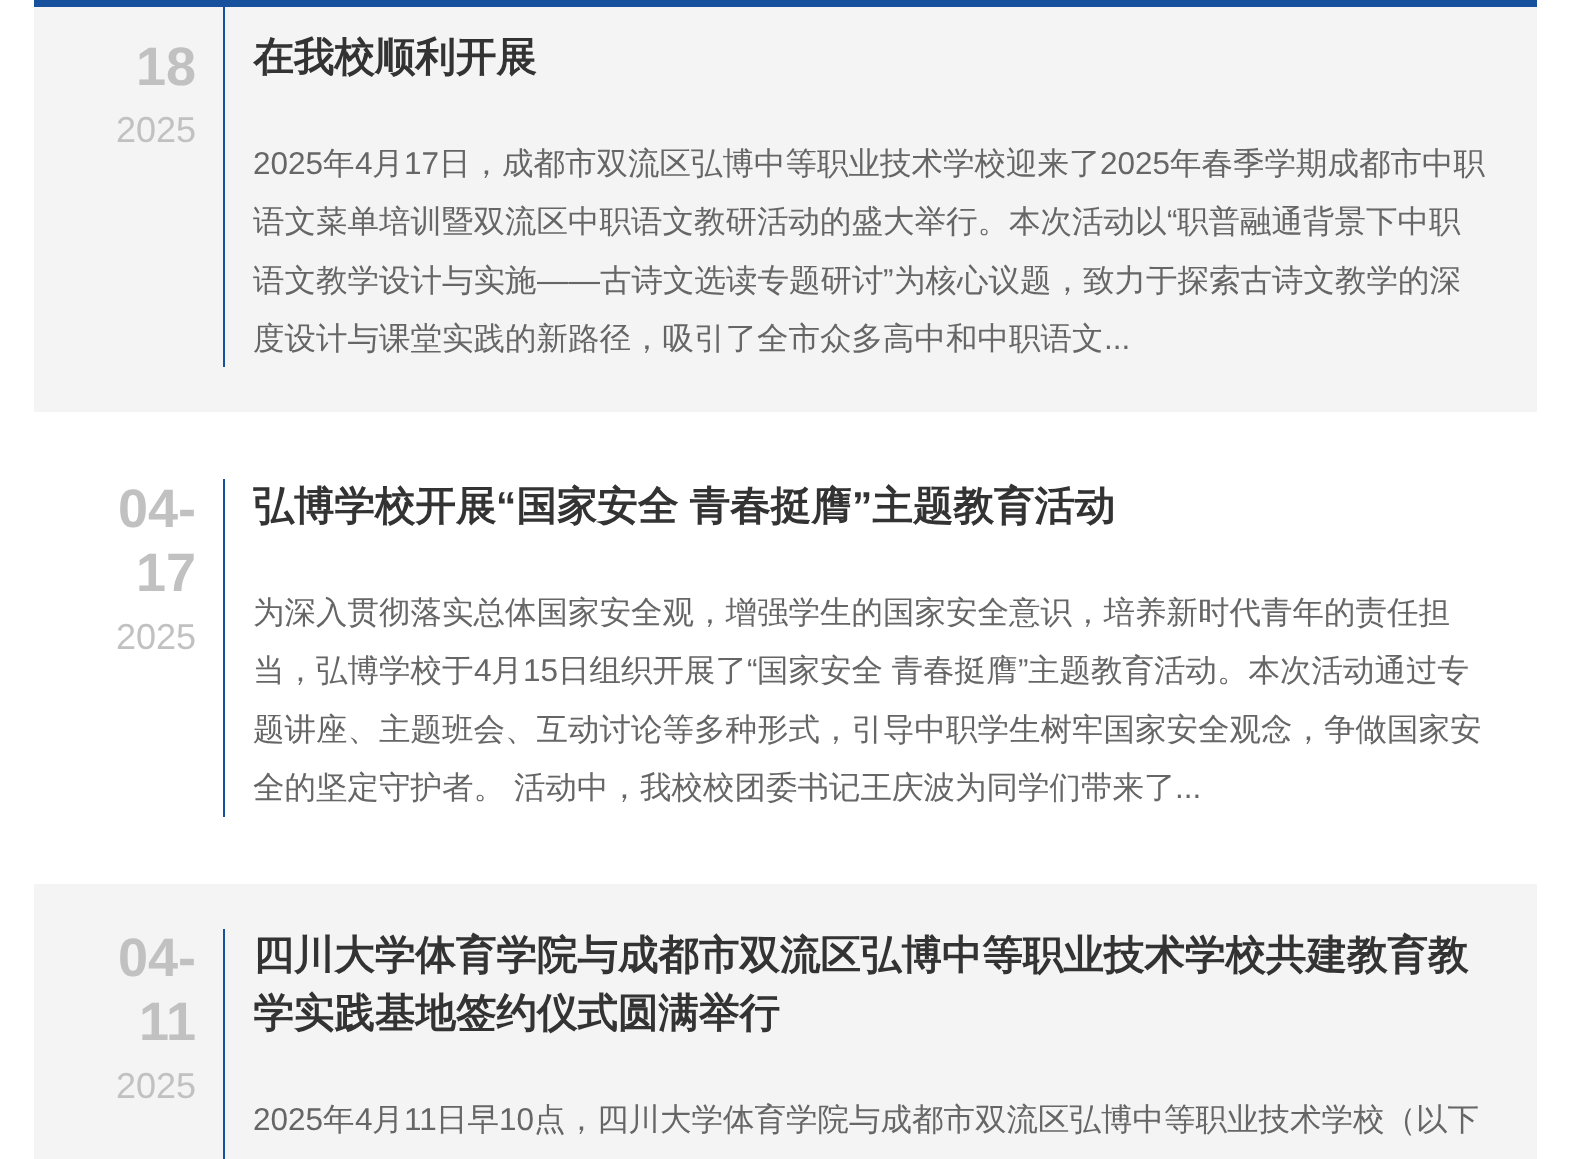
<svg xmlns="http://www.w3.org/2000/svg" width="1569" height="1159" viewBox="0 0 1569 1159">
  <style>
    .t1 { font: bold 54px Liberation Sans; fill: #c1c1c1; }
    .t2 { font: 36px Liberation Sans; fill: #c1c1c1; }
    .t3 { font: bold 40.5px WenQuanYi Zen Hei; fill: #333; }
    .t4 { font: 31.5px Liberation Sans; fill: #666; }
    .t5 { font: 500 31.5px WenQuanYi Zen Hei; fill: #666; }
    .t6 { font: bold 40.5px Liberation Sans; fill: #333; }
  </style>
  <rect width="100%" height="100%" fill="#fff"/>
  <rect x="34" y="7" width="1503" height="405" fill="#f4f4f4"/>
  <rect x="223" y="0" width="2" height="367" fill="#17509d"/>
  <rect x="34" y="0" width="1503" height="7" fill="#17509d"/>
  <text x="136" y="85" class="t1">18</text>
  <text x="116" y="142" class="t2">2025</text>
  <text x="253" y="71" class="t3">在我校顺利开展</text>
  <text x="253" y="174" class="t4">2025</text>
  <text x="323" y="174" class="t5">年</text>
  <text x="355" y="174" class="t4">4</text>
  <text x="372" y="174" class="t5">月</text>
  <text x="404" y="174" class="t4">17</text>
  <text x="439" y="174" class="t5">日，成都市双流区弘博中等职业技术学校迎来了</text>
  <text x="1100" y="174" class="t4">2025</text>
  <text x="1170" y="174" class="t5">年春季学期成都市中职</text>
  <text x="253" y="232" class="t5">语文菜单培训暨双流区中职语文教研活动的盛大举行。本次活动以</text>
  <text x="1167" y="232" class="t4">“</text>
  <text x="1177" y="232" class="t5">职普融通背景下中职</text>
  <text x="253" y="291" class="t5">语文教学设计与实施</text>
  <text x="600" y="291" class="t5">古诗文选读专题研讨</text>
  <text x="883" y="291" class="t4">”</text>
  <text x="894" y="291" class="t5">为核心议题，致力于探索古诗文教学的深</text>
  <text x="537" y="291" class="t4">——</text>
  <text x="253" y="349" class="t5">度设计与课堂实践的新路径，吸引了全市众多高中和中职语文</text>
  <text x="1104" y="349" class="t4">...</text>
  <text x="118" y="527" class="t1">04-</text>
  <text x="136" y="591" class="t1">17</text>
  <text x="116" y="649" class="t2">2025</text>
  <rect x="223" y="479" width="2" height="338" fill="#17509d"/>
  <text x="253" y="520" class="t3">弘博学校开展</text>
  <text x="496" y="520" class="t6">“</text>
  <text x="516" y="520" word-spacing="-1" class="t3">国家安全 青春挺膺</text>
  <text x="852" y="520" class="t6">”</text>
  <text x="872" y="520" class="t3">主题教育活动</text>
  <text x="253" y="623" class="t5">为深入贯彻落实总体国家安全观，增强学生的国家安全意识，培养新时代青年的责任担</text>
  <text x="253" y="681" class="t5">当，弘博学校于</text>
  <text x="474" y="681" class="t4">4</text>
  <text x="491" y="681" class="t5">月</text>
  <text x="523" y="681" class="t4">15</text>
  <text x="558" y="681" class="t5">日组织开展了</text>
  <text x="747" y="681" class="t4">“</text>
  <text x="757" y="681" word-spacing="-1" class="t5">国家安全 青春挺膺</text>
  <text x="1018" y="681" class="t4">”</text>
  <text x="1028" y="681" class="t5">主题教育活动。本次活动通过专</text>
  <text x="253" y="740" class="t5">题讲座、主题班会、互动讨论等多种形式，引导中职学生树牢国家安全观念，争做国家安</text>
  <text x="253" y="798" class="t5">全的坚定守护者。</text>
  <text x="514" y="798" class="t5">活动中，我校校团委书记王庆波为同学们带来了</text>
  <text x="1175" y="798" class="t4">...</text>
  <rect x="34" y="884" width="1503" height="275" fill="#f4f4f4"/>
  <text x="118" y="976" class="t1">04-</text>
  <text x="139" y="1040" class="t1">11</text>
  <text x="116" y="1098" class="t2">2025</text>
  <rect x="223" y="929" width="2" height="230" fill="#17509d"/>
  <text x="253" y="969" class="t3">四川大学体育学院与成都市双流区弘博中等职业技术学校共建教育教</text>
  <text x="253" y="1027" class="t3">学实践基地签约仪式圆满举行</text>
  <text x="253" y="1130" class="t4">2025</text>
  <text x="323" y="1130" class="t5">年</text>
  <text x="355" y="1130" class="t4">4</text>
  <text x="372" y="1130" class="t5">月</text>
  <text x="404" y="1130" class="t4">11</text>
  <text x="436" y="1130" class="t5">日早</text>
  <text x="499" y="1130" class="t4">10</text>
  <text x="534" y="1130" class="t5">点，四川大学体育学院与成都市双流区弘博中等职业技术学校（以下</text>
</svg>
